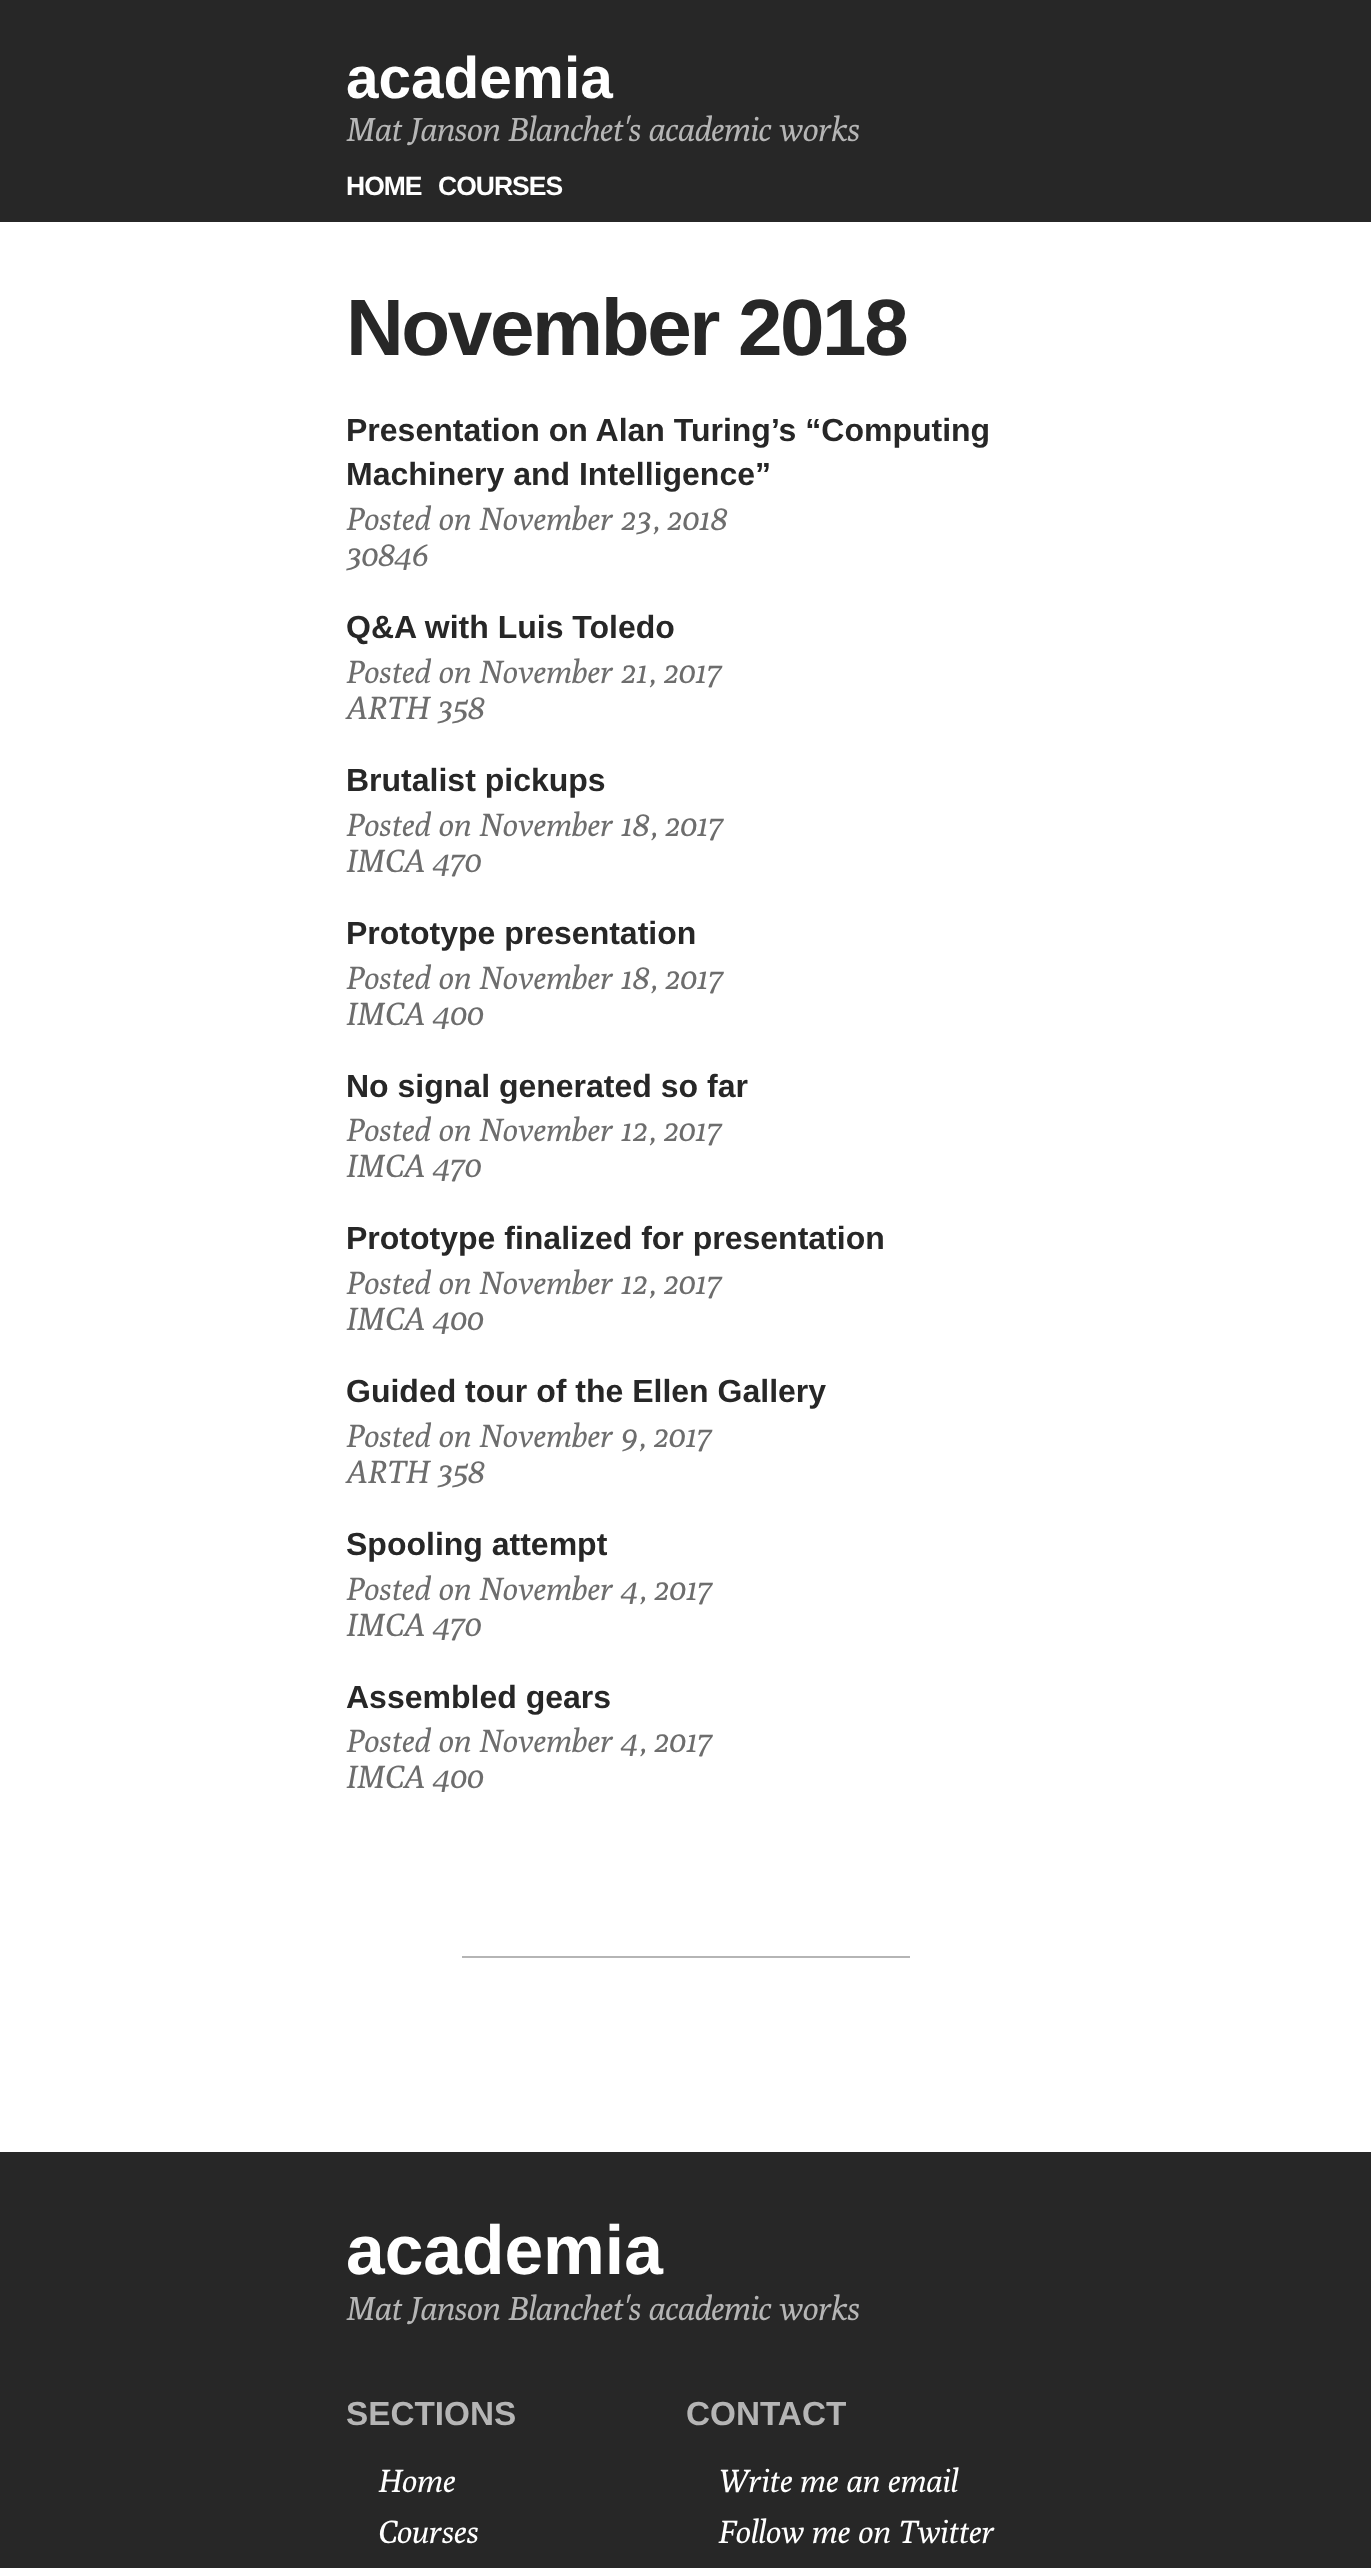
<svg xmlns="http://www.w3.org/2000/svg" width="1371" height="2568" viewBox="0 0 1371 2568">
  <style>
    .t1 { font: bold 58.5px Liberation Sans; fill: #fff; }
    .t2 { font: italic 33.3px Poly; letter-spacing: -0.35px; fill: #b5b5b5; }
    .t3 { font: bold 26.5px Liberation Sans; letter-spacing: -1px; fill: #fff; }
    .t4 { font: bold 80px Liberation Sans; letter-spacing: -2.4px; fill: #272727; }
    .t5 { font: bold 32px Liberation Sans; fill: #272727; }
    .t6 { font: italic 32px Poly; fill: #6d6d6d; }
    .t7 { font: bold 69.5px Liberation Sans; fill: #fff; }
    .t8 { font: bold 33.3px Liberation Sans; fill: #b5b5b5; }
    .t9 { font: italic 32px Poly; fill: #fff; }
  </style>
  <rect width="100%" height="100%" fill="#fff"/>
  <rect x="0" y="0" width="1371" height="222" fill="#272727"/>
  <text x="346" y="98" class="t1">academia</text>
  <text x="346" y="141" class="t2">Mat Janson Blanchet's academic works</text>
  <text x="346" y="195" class="t3">HOME</text>
  <text x="438" y="195" class="t3">COURSES</text>
  <text x="346" y="355" class="t4">November 2018</text>
  <text x="346" y="441" class="t5">Presentation on Alan Turing’s “Computing</text>
  <text x="346" y="485" class="t5">Machinery and Intelligence”</text>
  <text x="346" y="530" class="t6">Posted on November 23, 2018</text>
  <text x="346" y="566" class="t6">30846</text>
  <text x="346" y="638" class="t5">Q&amp;A with Luis Toledo</text>
  <text x="346" y="683" class="t6">Posted on November 21, 2017</text>
  <text x="346" y="719" class="t6">ARTH 358</text>
  <text x="346" y="791" class="t5">Brutalist pickups</text>
  <text x="346" y="836" class="t6">Posted on November 18, 2017</text>
  <text x="346" y="872" class="t6">IMCA 470</text>
  <text x="346" y="944" class="t5">Prototype presentation</text>
  <text x="346" y="989" class="t6">Posted on November 18, 2017</text>
  <text x="346" y="1025" class="t6">IMCA 400</text>
  <text x="346" y="1097" class="t5">No signal generated so far</text>
  <text x="346" y="1141" class="t6">Posted on November 12, 2017</text>
  <text x="346" y="1177" class="t6">IMCA 470</text>
  <text x="346" y="1249" class="t5">Prototype finalized for presentation</text>
  <text x="346" y="1294" class="t6">Posted on November 12, 2017</text>
  <text x="346" y="1330" class="t6">IMCA 400</text>
  <text x="346" y="1402" class="t5">Guided tour of the Ellen Gallery</text>
  <text x="346" y="1447" class="t6">Posted on November 9, 2017</text>
  <text x="346" y="1483" class="t6">ARTH 358</text>
  <text x="346" y="1555" class="t5">Spooling attempt</text>
  <text x="346" y="1600" class="t6">Posted on November 4, 2017</text>
  <text x="346" y="1636" class="t6">IMCA 470</text>
  <text x="346" y="1708" class="t5">Assembled gears</text>
  <text x="346" y="1752" class="t6">Posted on November 4, 2017</text>
  <text x="346" y="1788" class="t6">IMCA 400</text>
  <rect x="462" y="1956" width="448" height="2" fill="#b5b5b5"/>
  <rect x="0" y="2152" width="1371" height="416" fill="#272727"/>
  <text x="346" y="2274" class="t7">academia</text>
  <text x="346" y="2320" class="t2">Mat Janson Blanchet's academic works</text>
  <text x="346" y="2425" class="t8">SECTIONS</text>
  <text x="378" y="2492" class="t9">Home</text>
  <text x="378" y="2543" class="t9">Courses</text>
  <text x="686" y="2425" class="t8">CONTACT</text>
  <text x="718" y="2492" class="t9">Write me an email</text>
  <text x="718" y="2543" class="t9">Follow me on Twitter</text>
</svg>
